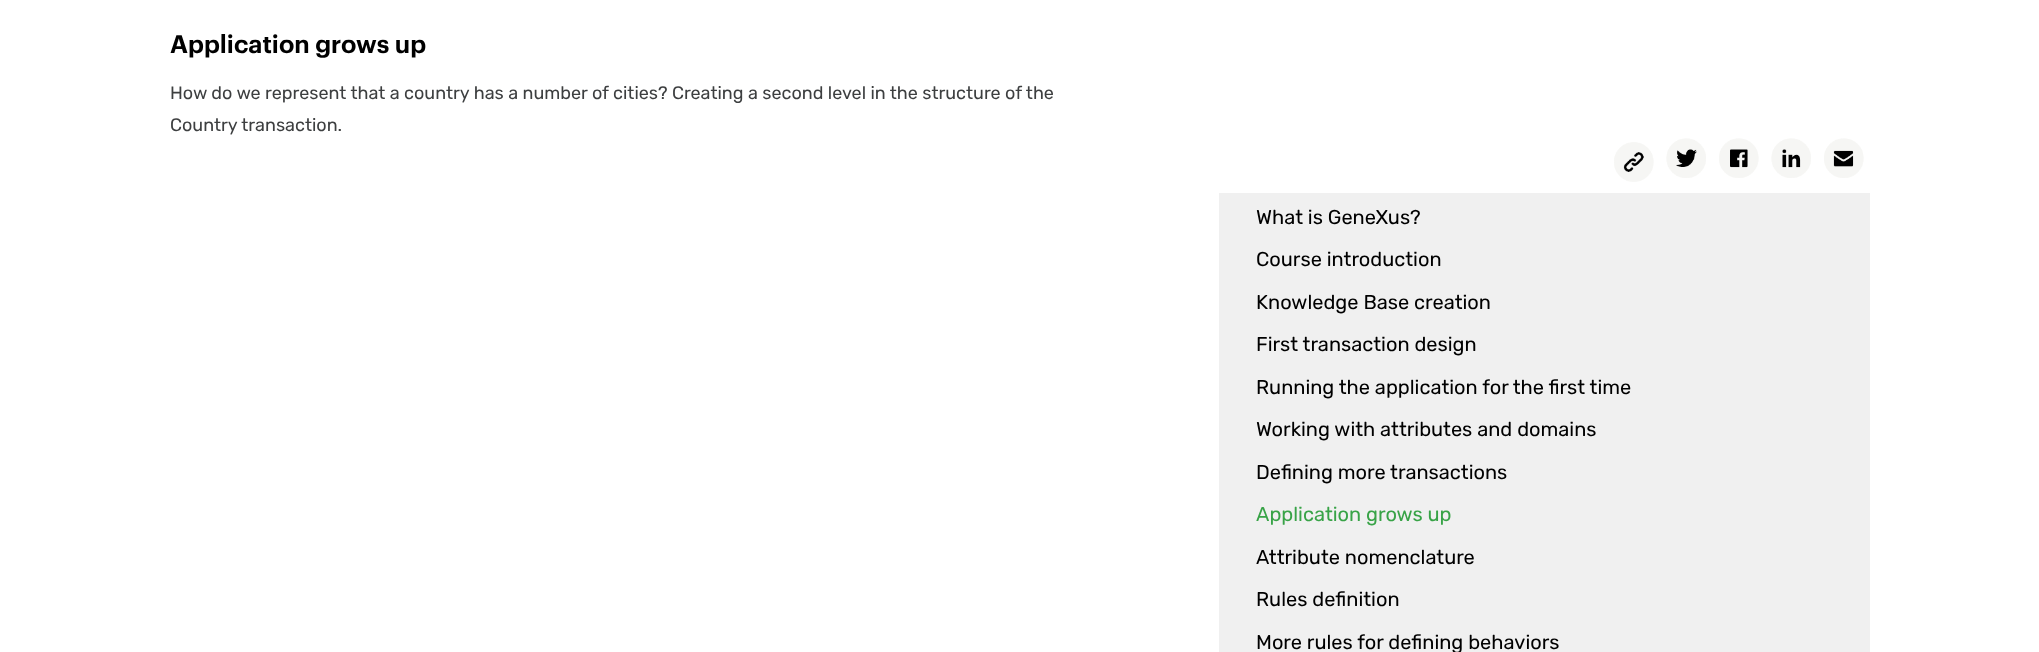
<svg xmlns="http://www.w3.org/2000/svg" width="2039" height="652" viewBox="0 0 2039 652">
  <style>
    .t1 { font: 600 25px Graphik; fill: #000; }
    .t2 { font: 18px Rubik; fill: #3d3f40; }
    .t3 { font: 20px Rubik; fill: #000; }
    .t4 { font: 20px Rubik; fill: #38a347; }
  </style>
  <rect width="100%" height="100%" fill="#fff"/>
  <text x="170" y="53" class="t1">Application grows up</text>
  <text x="170" y="99" class="t2">How do we represent that a country has a number of cities? Creating a second level in the structure of the</text>
  <text x="170" y="131" class="t2">Country transaction.</text>
  <image x="1614" y="142" width="40" height="40" href="images/1.png"/>
  <image x="1666" y="138" width="40" height="40" href="images/2.png"/>
  <image x="1719" y="138" width="40" height="40" href="images/3.png"/>
  <image x="1771" y="138" width="40" height="40" href="images/4.png"/>
  <image x="1824" y="138" width="40" height="40" href="images/5.png"/>
  <rect x="1219" y="193" width="651" height="459" fill="#f0f0f0"/>
  <text x="1256" y="224" class="t3">What is GeneXus?</text>
  <text x="1256" y="266" class="t3">Course introduction</text>
  <text x="1256" y="309" class="t3">Knowledge Base creation</text>
  <text x="1256" y="351" class="t3">First transaction design</text>
  <text x="1256" y="394" class="t3">Running the application for the first time</text>
  <text x="1256" y="436" class="t3">Working with attributes and domains</text>
  <text x="1256" y="479" class="t3">Defining more transactions</text>
  <text x="1256" y="521" class="t4">Application grows up</text>
  <text x="1256" y="564" class="t3">Attribute nomenclature</text>
  <text x="1256" y="606" class="t3">Rules definition</text>
  <text x="1256" y="649" class="t3">More rules for defining behaviors</text>
</svg>
